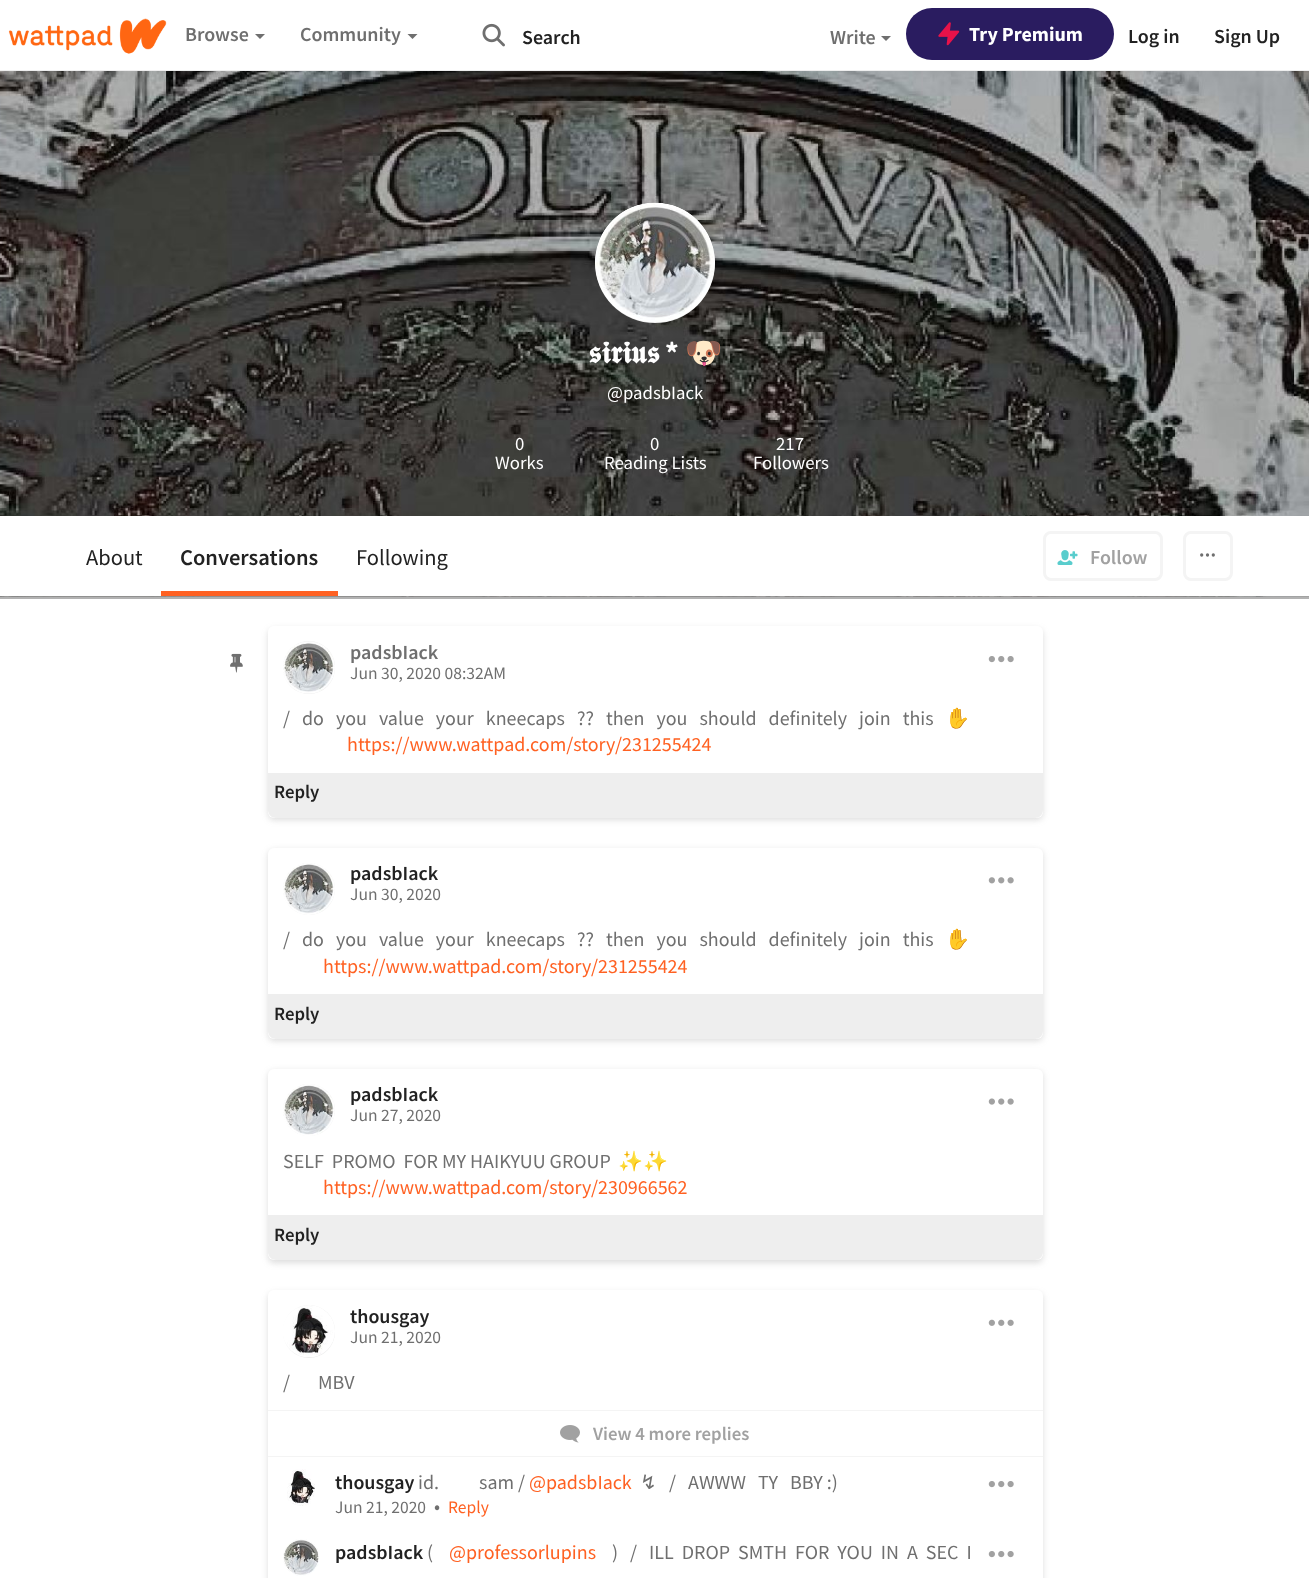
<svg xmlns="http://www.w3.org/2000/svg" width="1309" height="1578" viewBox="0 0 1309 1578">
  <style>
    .t1 { font: 600 20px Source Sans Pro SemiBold; fill: #6f6f6f; }
    .t2 { font: 600 20px Source Sans Pro SemiBold; fill: #222; }
    .t3 { font: bold 20px Source Sans Pro; fill: #fff; }
    .t4 { font: bold 30px FreeSerif; fill: #fff; }
    .t5 { font: bold 30px Source Sans Pro; fill: #fff; }
    .t6 { font: bold 30px Noto Color Emoji; fill: #fff; }
    .t7 { font: 18.75px Source Sans Pro; fill: #fff; }
    .t8 { font: 22.5px Source Sans Pro; fill: #222; }
    .t9 { font: 600 22.5px Source Sans Pro SemiBold; fill: #222; }
    .t10 { font: 600 20px Source Sans Pro SemiBold; fill: #a1a1a1; }
    .t11 { font: 17.5px Source Sans Pro; fill: #6f6f6f; }
    .t12 { font: 20px Source Sans Pro; fill: #6f6f6f; }
    .t13 { font: 20px Noto Color Emoji; fill: #6f6f6f; }
    .t14 { font: 20px Source Sans Pro; fill: #ff6122; }
    .t15 { font: 600 18.75px Source Sans Pro SemiBold; fill: #222; }
    .t16 { font: 600 18.75px Source Sans Pro SemiBold; fill: #a1a1a1; }
    .t17 { font: 20px DejaVu Sans; fill: #6f6f6f; }
    .t18 { font: 17.5px Source Sans Pro; fill: #ff6122; }
  </style>
  <rect width="100%" height="100%" fill="#fff"/>
  <rect x="0" y="70" width="1309" height="1" fill="#eee"/>
  <image x="8" y="18" width="159" height="36" href="images/1.png"/>
  <text x="185" y="41" class="t1">Browse</text>
  <path d="M255 34H265L260 39Z" fill="#6f6f6f"/>
  <text x="300" y="41" class="t1">Community</text>
  <path d="M407.5 34H417.5L412.5 39Z" fill="#6f6f6f"/>
  <image x="482" y="23" width="23" height="24" href="images/2.png"/>
  <text x="522" y="44" class="t2">Search</text>
  <text x="830" y="44" class="t1">Write</text>
  <path d="M881 36H891L886 41Z" fill="#6f6f6f"/>
  <rect x="906" y="8" width="208" height="52" rx="26" fill="#2a1c60"/>
  <image x="938" y="22" width="22" height="24" href="images/3.png"/>
  <text x="969" y="41" class="t3">Try Premium</text>
  <text x="1128" y="43" class="t2">Log in</text>
  <text x="1214" y="43" class="t2">Sign Up</text>
  <image x="0" y="71" width="1309" height="526" href="images/4.png"/>
  <circle cx="655" cy="263" r="60" fill="#eee"/>
  <image x="595" y="202" width="120" height="120" href="images/5.png"/>
  <text x="588" y="363" class="t4">𝖘𝖎𝖗𝖎𝖚𝖘</text>
  <text x="665" y="363" class="t5">*</text>
  <text x="685" y="363" class="t6">🐶</text>
  <text x="607" y="399" class="t7">@padsbIack</text>
  <text x="515" y="450" class="t7">0</text>
  <text x="495" y="469" class="t7">Works</text>
  <text x="650" y="450" class="t7">0</text>
  <text x="604" y="469" class="t7">Reading Lists</text>
  <text x="776" y="450" class="t7">217</text>
  <text x="753" y="469" class="t7">Followers</text>
  <rect x="0" y="596" width="1309" height="3" fill="#0000004d"/>
  <rect x="0" y="516" width="1309" height="80" fill="#fff"/>
  <text x="86" y="565" class="t8">About</text>
  <rect x="161" y="591" width="177" height="5" fill="#ff6122"/>
  <text x="180" y="565" class="t9">Conversations</text>
  <text x="356" y="565" class="t8">Following</text>
  <rect x="1044.5" y="532.5" width="117" height="47" rx="6.5" fill="none" stroke="#f4f4f4" stroke-width="3"/>
  <image x="1057" y="550" width="21" height="15" href="images/6.png"/>
  <text x="1090" y="564" class="t10">Follow</text>
  <rect x="1184.5" y="532.5" width="47" height="47" rx="6.5" fill="none" stroke="#f4f4f4" stroke-width="3"/>
  <circle cx="1201.7" cy="555" r="0.8" fill="none" stroke="#6f6f6f" stroke-width="1.7"/>
  <circle cx="1207.5" cy="555" r="0.8" fill="none" stroke="#6f6f6f" stroke-width="1.7"/>
  <circle cx="1213.3" cy="555" r="0.8" fill="none" stroke="#6f6f6f" stroke-width="1.7"/>
  <rect x="268" y="629" width="775" height="191" rx="6" fill="#78787840" filter="blur(3px)"/>
  <rect x="268" y="626" width="775" height="192" rx="6" fill="#fff"/>
  <image x="230" y="653" width="13" height="20" href="images/7.png"/>
  <rect x="283" y="641" width="52" height="53" rx="26" fill="#eee"/>
  <image x="283" y="641" width="52" height="53" href="images/8.png"/>
  <text x="350" y="659" class="t1">padsbIack</text>
  <image x="988" y="656" width="26" height="7" href="images/9.png"/>
  <text x="350" y="679" class="t11">Jun 30, 2020 08:32AM</text>
  <text x="283" y="725" class="t12" xml:space="preserve">/   do   you   value   your   kneecaps   ??   then   you   should   definitely   join   this</text>
  <text x="945" y="725" class="t13">✋</text>
  <text x="347" y="751" class="t14">https://www.wattpad.com/story/231255424</text>
  <path d="M268 773H1043V810C1043 814.5 1039.5 818 1035 818H276C271.5 818 268 814.5 268 810Z" fill="#eee"/>
  <text x="274" y="798" class="t15">Reply</text>
  <rect x="268" y="850" width="775" height="191" rx="6" fill="#78787840" filter="blur(3px)"/>
  <rect x="268" y="848" width="775" height="191" rx="6" fill="#fff"/>
  <circle cx="309" cy="889" r="26" fill="#eee"/>
  <image x="283" y="863" width="52" height="52" href="images/10.png"/>
  <text x="350" y="880" class="t2">padsbIack</text>
  <image x="988" y="877" width="26" height="7" href="images/11.png"/>
  <text x="350" y="900" class="t11">Jun 30, 2020</text>
  <text x="283" y="946" class="t12" xml:space="preserve">/   do   you   value   your   kneecaps   ??   then   you   should   definitely   join   this</text>
  <text x="945" y="946" class="t13">✋</text>
  <text x="323" y="973" class="t14">https://www.wattpad.com/story/231255424</text>
  <path d="M268 994H1043V1031C1043 1035.5 1039.5 1039 1035 1039H276C271.5 1039 268 1035.5 268 1031Z" fill="#eee"/>
  <text x="274" y="1020" class="t15">Reply</text>
  <rect x="268" y="1071" width="775" height="192" rx="6" fill="#78787840" filter="blur(3px)"/>
  <rect x="268" y="1069" width="775" height="191" rx="6" fill="#fff"/>
  <circle cx="309" cy="1110" r="26" fill="#eee"/>
  <image x="283" y="1084" width="52" height="52" href="images/12.png"/>
  <text x="350" y="1101" class="t2">padsbIack</text>
  <image x="988" y="1098" width="26" height="7" href="images/13.png"/>
  <text x="350" y="1121" class="t11">Jun 27, 2020</text>
  <text x="283" y="1168" class="t12" xml:space="preserve">SELF  PROMO  FOR MY HAIKYUU GROUP</text>
  <text x="618" y="1168" class="t13">✨✨</text>
  <text x="323" y="1194" class="t14">https://www.wattpad.com/story/230966562</text>
  <path d="M268 1215H1043V1252C1043 1256.5 1039.5 1260 1035 1260H276C271.5 1260 268 1256.5 268 1252Z" fill="#eee"/>
  <text x="274" y="1241" class="t15">Reply</text>
  <rect x="268" y="1293" width="775" height="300" rx="6" fill="#78787840" filter="blur(3px)"/>
  <rect x="268" y="1290" width="775" height="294" rx="6" fill="#fff"/>
  <rect x="283" y="1305" width="52" height="53" rx="26" fill="#eee"/>
  <image x="283" y="1305" width="52" height="52" href="images/14.png"/>
  <text x="350" y="1323" class="t2">thousgay</text>
  <image x="988" y="1319" width="26" height="7" href="images/15.png"/>
  <text x="350" y="1343" class="t11">Jun 21, 2020</text>
  <text x="283" y="1389" class="t12" xml:space="preserve">/       MBV</text>
  <rect x="268" y="1410" width="775" height="1" fill="#f4f4f4"/>
  <rect x="268" y="1456" width="775" height="1" fill="#f4f4f4"/>
  <image x="560" y="1425" width="20" height="18" href="images/16.png"/>
  <text x="593" y="1440" class="t16">View 4 more replies</text>
  <image x="287" y="1469" width="28" height="37" href="images/17.png"/>
  <text x="335" y="1489" class="t2">thousgay</text>
  <text x="418" y="1489" class="t12" xml:space="preserve">id.          sam /</text>
  <text x="529" y="1489" class="t14">@padsbIack</text>
  <text x="640" y="1489" class="t17">↯</text>
  <text x="669" y="1489" class="t12" xml:space="preserve">/   AWWW   TY   BBY :)</text>
  <text x="335" y="1513" class="t11">Jun 21, 2020</text>
  <text x="434" y="1513" class="t12">•</text>
  <text x="448" y="1513" class="t18">Reply</text>
  <image x="988" y="1481" width="26" height="7" href="images/9.png"/>
  <image x="283" y="1539" width="36" height="37" href="images/18.png"/>
  <text x="335" y="1559" class="t2">padsbIack</text>
  <text x="427" y="1559" class="t12">(</text>
  <text x="449" y="1559" class="t14">@professorlupins</text>
  <text x="612" y="1559" class="t12" xml:space="preserve">)   /   ILL  DROP  SMTH  FOR  YOU  IN  A  SEC  I</text>
  <image x="988" y="1551" width="26" height="7" href="images/9.png"/>
</svg>
